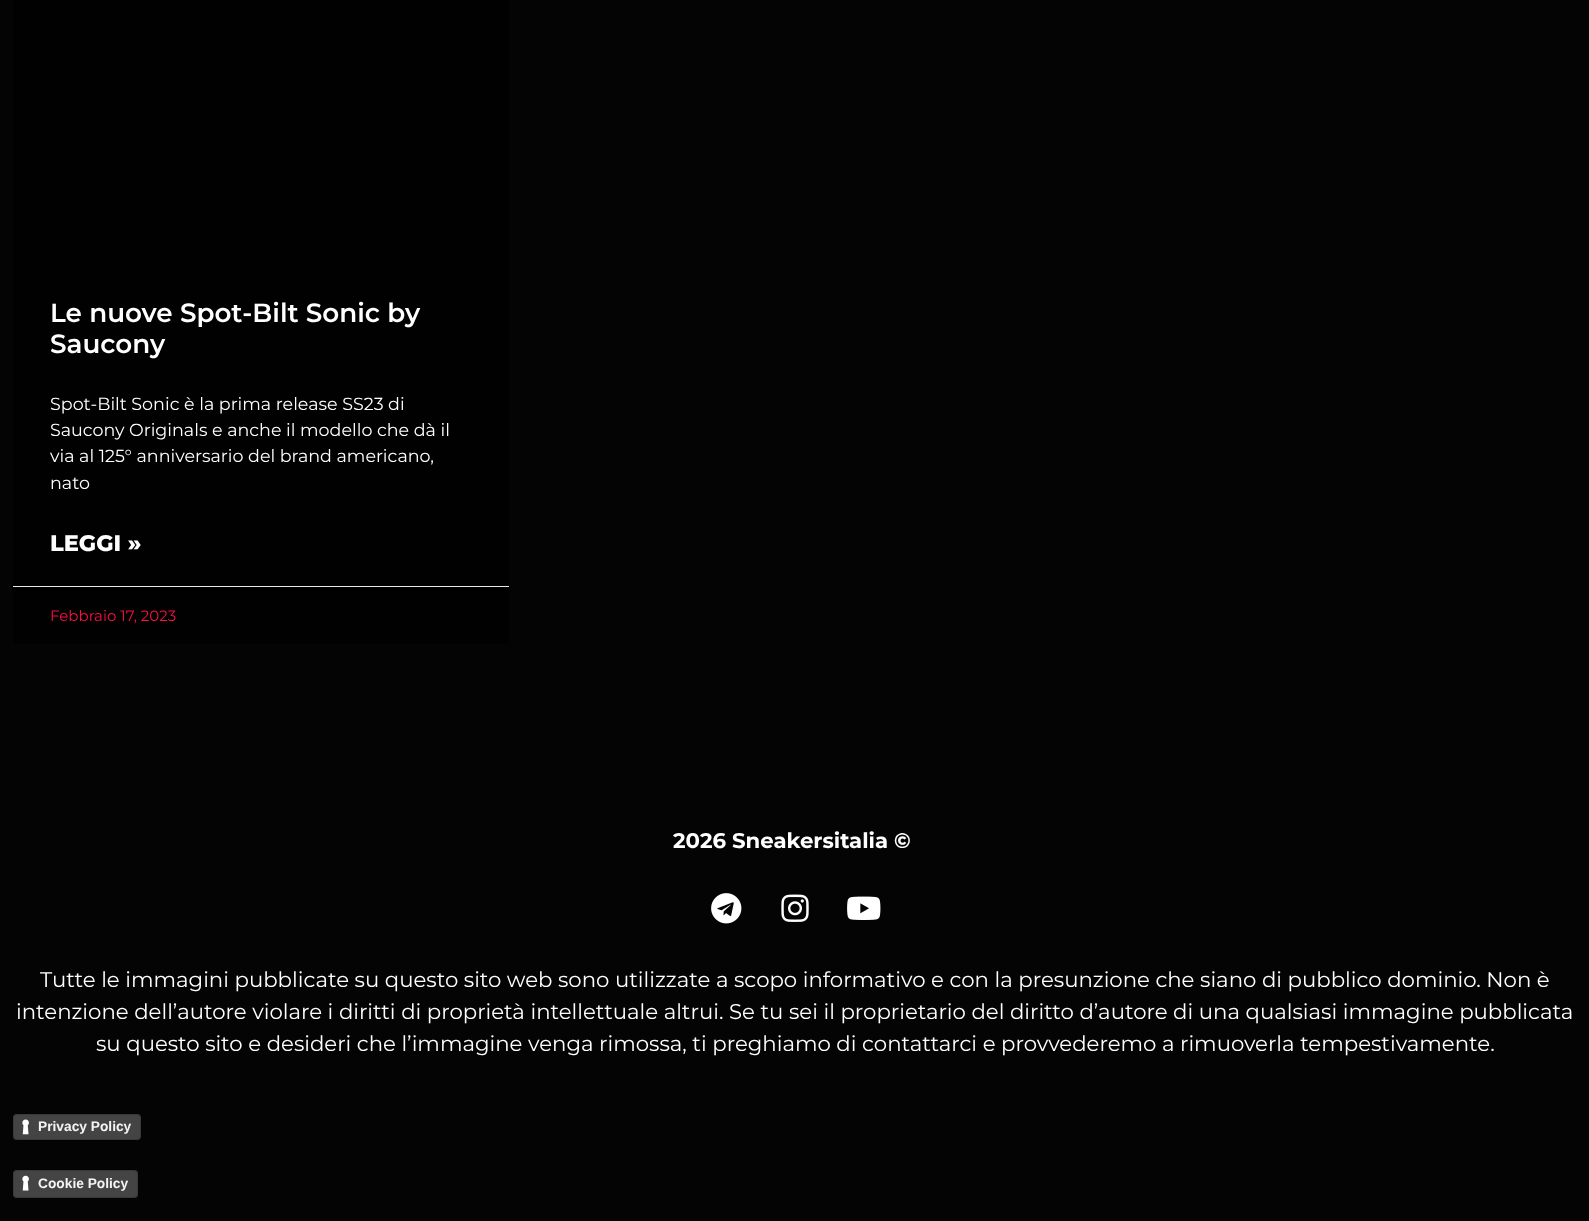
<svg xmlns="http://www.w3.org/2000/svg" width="1589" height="1221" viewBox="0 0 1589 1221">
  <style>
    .t1 { font: 600 26.25px Montserrat; fill: #fff; }
    .t2 { font: 17.5px Montserrat; fill: #fff; }
    .t3 { font: 800 22.5px Montserrat; fill: #fff; }
    .t4 { font: 15px Montserrat; fill: #f90f45; }
    .t5 { font: bold 21.25px Montserrat; fill: #fff; }
    .t6 { font: 21.25px Montserrat; fill: #fff; }
    .t7 { font: bold 13.75px Liberation Sans; fill: #f4f4f4; }
  </style>
  <rect width="100%" height="100%" fill="#040404"/>
  <rect x="13" y="-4" width="496" height="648" rx="4" fill="#020101"/>
  <text x="50" y="322" class="t1">Le nuove Spot-Bilt Sonic by</text>
  <text x="50" y="353" class="t1">Saucony</text>
  <text x="50" y="410" class="t2">Spot-Bilt Sonic è la prima release SS23 di</text>
  <text x="50" y="436" class="t2">Saucony Originals e anche il modello che dà il</text>
  <text x="50" y="462" class="t2">via al 125° anniversario del brand americano,</text>
  <text x="50" y="489" class="t2">nato</text>
  <text x="50" y="551" class="t3">LEGGI »</text>
  <rect x="13" y="586" width="496" height="1" fill="#eaeaea"/>
  <text x="50" y="621" class="t4">Febbraio 17, 2023</text>
  <text x="673" y="848" class="t5">2026 Sneakersitalia ©</text>
  <image x="711" y="893" width="31" height="31" href="images/1.png"/>
  <image x="781" y="894" width="28" height="28" href="images/2.png"/>
  <image x="847" y="896" width="34" height="24" href="images/3.png"/>
  <text x="40" y="987" class="t6">Tutte le immagini pubblicate su questo sito web sono utilizzate a scopo informativo e con la presunzione che siano di pubblico dominio. Non è</text>
  <text x="16" y="1019" class="t6">intenzione dell’autore violare i diritti di proprietà intellettuale altrui. Se tu sei il proprietario del diritto d’autore di una qualsiasi immagine pubblicata</text>
  <text x="96" y="1051" class="t6">su questo sito e desideri che l’immagine venga rimossa, ti preghiamo di contattarci e provvederemo a rimuoverla tempestivamente.</text>
  <rect x="13" y="1114" width="128" height="26" rx="4" fill="#444"/>
  <image x="22" y="1119" width="7" height="16" href="images/4.png"/>
  <rect x="13.5" y="1114.5" width="127" height="25" rx="3.5" fill="none" stroke="#00000026"/>
  <text x="38" y="1131" class="t7">Privacy Policy</text>
  <rect x="13" y="1170" width="125" height="28" rx="4" fill="#444"/>
  <image x="22" y="1175" width="7" height="16" href="images/5.png"/>
  <rect x="13.5" y="1170.5" width="124" height="27" rx="3.5" fill="none" stroke="#00000026"/>
  <text x="38" y="1188" class="t7">Cookie Policy</text>
</svg>
